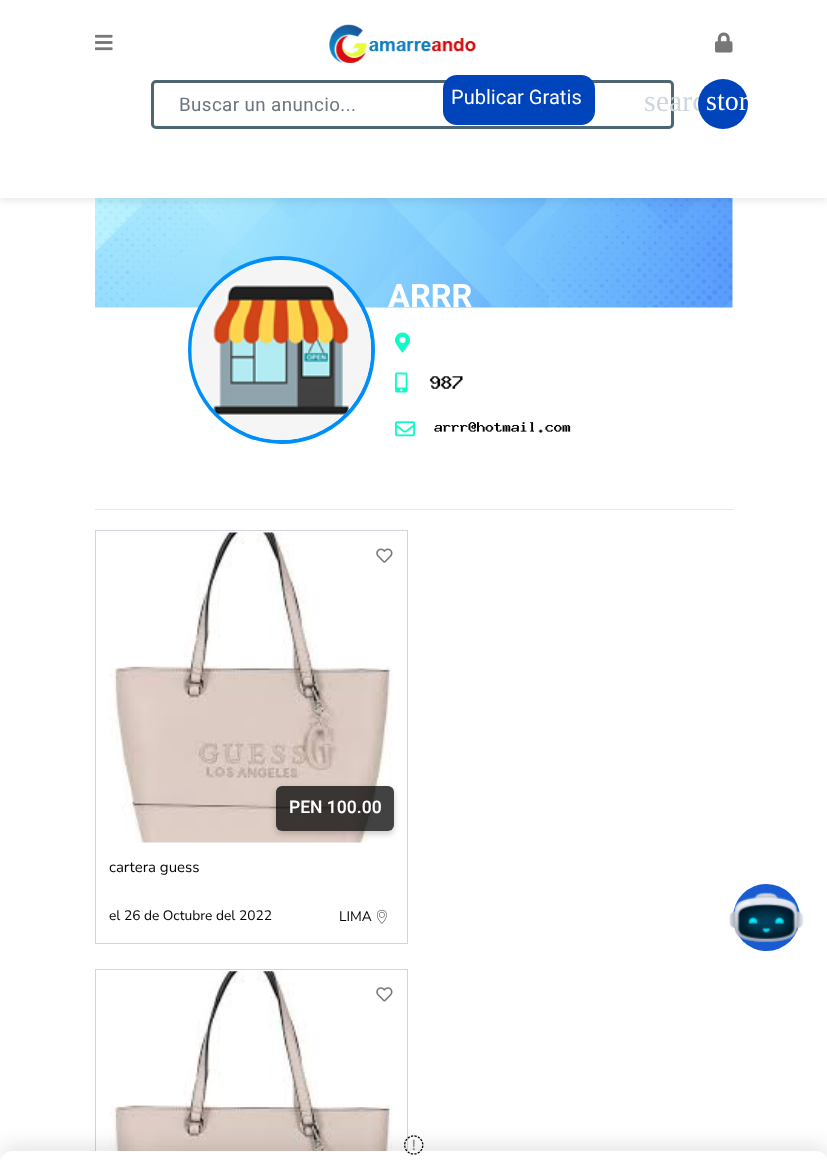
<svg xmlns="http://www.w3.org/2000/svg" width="827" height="1176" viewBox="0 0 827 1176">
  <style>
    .t1 { font: 20px Heebo; fill: #fff; }
    .t2 { font: 30px Liberation Serif; fill: #cdd6db; }
    .t3 { font: 28px Liberation Serif; fill: #fff; }
    .t4 { font: 18.75px Heebo; letter-spacing: 0.4px; fill: #6c757d; }
    .t5 { font: bold 32.5px Heebo; fill: #fff; }
    .t6 { font: 600 17.5px Heebo; fill: #fff; }
    .t7 { font: 15px Nunito Sans; fill: #000; }
    .t8 { font: 13.75px Nunito Sans; fill: #000; }
  </style>
  <defs>
    <clipPath id="clip1"><path d="M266 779H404V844H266ZM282 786H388C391.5 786 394 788.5 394 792V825C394 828.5 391.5 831 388 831H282C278.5 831 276 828.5 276 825V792C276 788.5 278.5 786 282 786Z" clip-rule="evenodd"/></clipPath>
  </defs>
  <rect width="100%" height="100%" fill="#fff"/>
  <image x="95" y="198" width="638" height="110" href="images/4.png"/>
  <rect x="0" y="3" width="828" height="197" fill="#0000001a" filter="blur(5px)"/>
  <rect x="0" y="0" width="827" height="198" fill="#fff"/>
  <image x="95" y="34" width="18" height="17" href="images/1.png"/>
  <image x="329" y="24" width="147" height="39" href="images/2.png"/>
  <image x="715" y="32" width="18" height="21" href="images/3.png"/>
  <rect x="152.5" y="81.5" width="520" height="46" rx="3.5" fill="none" stroke="#4e6671" stroke-width="3"/>
  <rect x="443" y="75" width="152" height="50" rx="14" fill="#04b"/>
  <text x="451" y="104" class="t1">Publicar Gratis</text>
  <text x="644" y="111" class="t2">searc</text>
  <circle cx="723" cy="104" r="25" fill="#04b"/>
  <text x="706" y="110" class="t3">stor</text>
  <text x="179" y="111" class="t4">Buscar un anuncio...</text>
  <rect x="190" y="258" width="183" height="184" rx="91.5" fill="none" stroke="#008ff8" stroke-width="4"/>
  <image x="191" y="260" width="181" height="180" href="images/5.png"/>
  <text x="388" y="307" class="t5">ARRR</text>
  <image x="395" y="332" width="15" height="21" href="images/6.png"/>
  <image x="395" y="372" width="13" height="21" href="images/7.png"/>
  <image x="429" y="376" width="34" height="13" href="images/8.png"/>
  <image x="395" y="421" width="20" height="16" href="images/9.png"/>
  <image x="434" y="422" width="137" height="11" href="images/10.png"/>
  <rect x="95" y="509" width="638" height="1" fill="#e6e6e6"/>
  <rect x="95.5" y="530.5" width="312" height="413" fill="none" stroke="#cfd4dd"/>
  <image x="109" y="532" width="284" height="311" href="images/11.png"/>
  <image x="376" y="548" width="17" height="15" href="images/12.png"/>
  <g clip-path="url(#clip1)">
    <rect x="276" y="789" width="118" height="45" rx="6" fill="#00000033" filter="blur(3px)"/>
  </g>
  <rect x="276" y="786" width="118" height="45" rx="6" fill="#000000bd"/>
  <text x="289" y="813" class="t6">PEN 100.00</text>
  <text x="109" y="872" class="t7">cartera guess</text>
  <text x="109" y="920" class="t8">el 26 de Octubre del 2022</text>
  <text x="339" y="921" class="t8">LIMA</text>
  <image x="377" y="910" width="10" height="14" href="images/13.png"/>
  <rect x="95.5" y="969.5" width="312" height="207" fill="none" stroke="#cfd4dd"/>
  <image x="109" y="971" width="283" height="180" href="images/14.png"/>
  <image x="376" y="987" width="17" height="15" href="images/15.png"/>
  <circle cx="766.5" cy="917.5" r="33.5" fill="#195cd1"/>
  <image x="729" y="892" width="75" height="51" href="images/16.png"/>
  <rect x="0" y="1145" width="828" height="25" rx="12.5" fill="#0000001a" filter="blur(9.5px)"/>
  <path d="M12.5 1151H815.5C822.5 1151 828 1156.5 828 1163.5V1176H0V1163.5C0 1156.5 5.5 1151 12.5 1151Z" fill="#fff"/>
  <image x="404" y="1135" width="20" height="20" href="images/17.png"/>
</svg>
